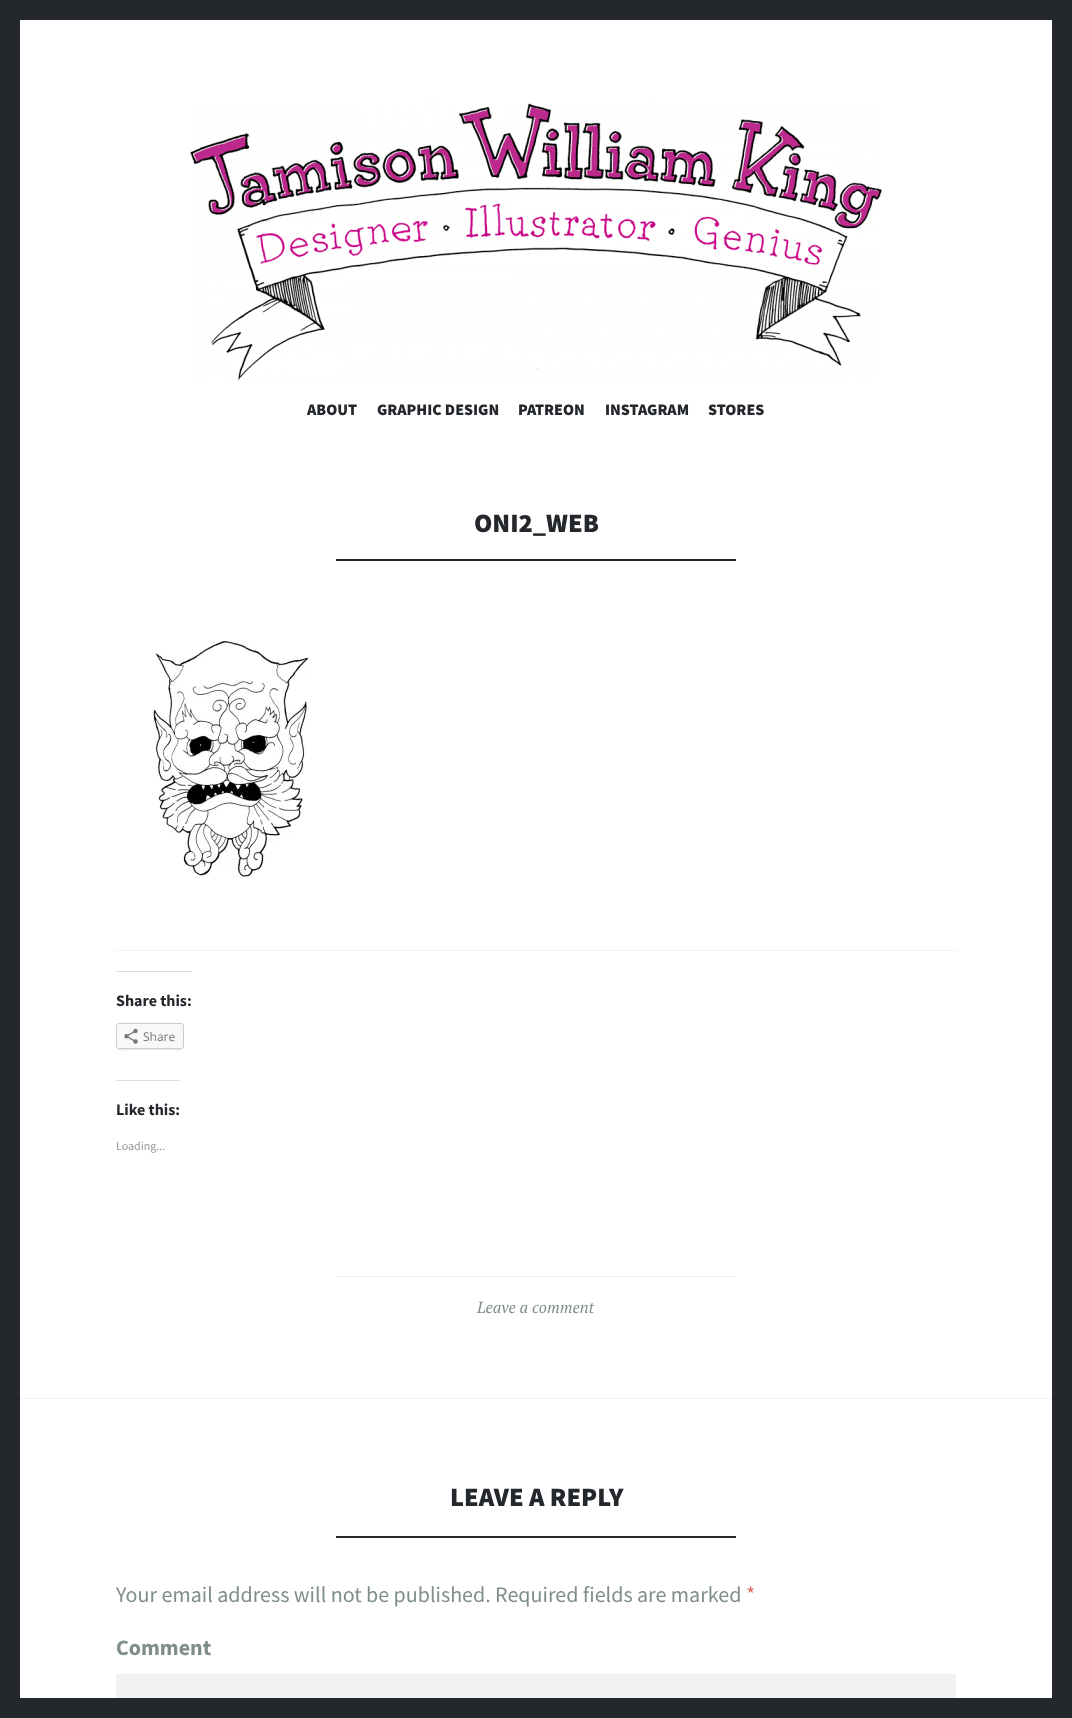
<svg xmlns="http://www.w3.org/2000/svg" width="1072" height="1718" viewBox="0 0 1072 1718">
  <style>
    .t1 { font: 900 16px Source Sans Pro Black; fill: #24282d; }
    .t2 { font: 900 26.5px Source Sans Pro Black; fill: #24282d; }
    .t3 { font: bold 16px Source Sans Pro; fill: #24282d; }
    .t4 { font: 12px Open Sans; fill: #777; }
    .t5 { font: 12px Source Sans Pro; fill: #999; }
    .t6 { font: italic 16px PT Serif; fill: #7f8d8c; }
    .t7 { font: 22px Source Sans Pro; fill: #7f8d8c; }
    .t8 { font: 22px Source Sans Pro; fill: #e06d5e; }
    .t9 { font: bold 22px Source Sans Pro; fill: #7f8d8c; }
  </style>
  <rect width="100%" height="100%" fill="#24282d"/>
  <rect x="20" y="20" width="1032" height="1678" fill="#fff"/>
  <image x="190" y="102" width="692" height="281" href="images/1.png"/>
  <text x="307" y="415" class="t1">ABOUT</text>
  <text x="377" y="415" class="t1">GRAPHIC DESIGN</text>
  <text x="518" y="415" class="t1">PATREON</text>
  <text x="605" y="415" class="t1">INSTAGRAM</text>
  <text x="708" y="415" class="t1">STORES</text>
  <text x="474" y="532" class="t2">ONI2_WEB</text>
  <rect x="336" y="559" width="400" height="2" fill="#24282d"/>
  <image x="152" y="641" width="158" height="236" href="images/2.png"/>
  <rect x="116" y="950" width="840" height="1" fill="#f1f2f3"/>
  <rect x="116" y="971" width="76" height="1" fill="#ddd"/>
  <text x="116" y="1006" class="t3">Share this:</text>
  <path d="M116 1046C116 1053 125 1050 129 1050H171C175 1050 184 1053 184 1046C184 1048 183 1049 181 1049H119C117 1049 116 1048 116 1046Z" fill="#ebebeb"/>
  <rect x="116.5" y="1023.5" width="67" height="25" rx="2.5" fill="#f8f8f8" stroke="#ccc"/>
  <image x="124" y="1028" width="14" height="16" href="images/3.png"/>
  <text x="143" y="1041" class="t4">Share</text>
  <rect x="116" y="1080" width="64" height="1" fill="#ddd"/>
  <text x="116" y="1115" class="t3">Like this:</text>
  <text x="116" y="1150" class="t5">Loading...</text>
  <rect x="336" y="1276" width="400" height="1" fill="#f1f2f3"/>
  <text x="477" y="1313" class="t6">Leave a comment</text>
  <rect x="20" y="1398" width="1032" height="1" fill="#f1f2f3"/>
  <text x="450" y="1506" class="t2">LEAVE A REPLY</text>
  <rect x="336" y="1536" width="400" height="2" fill="#24282d"/>
  <text x="116" y="1602" class="t7">Your email address will not be published. Required fields are marked</text>
  <text x="746" y="1602" class="t8">*</text>
  <text x="116" y="1655" class="t9">Comment</text>
  <rect x="116" y="1674" width="840" height="24" fill="#f1f2f3"/>
</svg>
